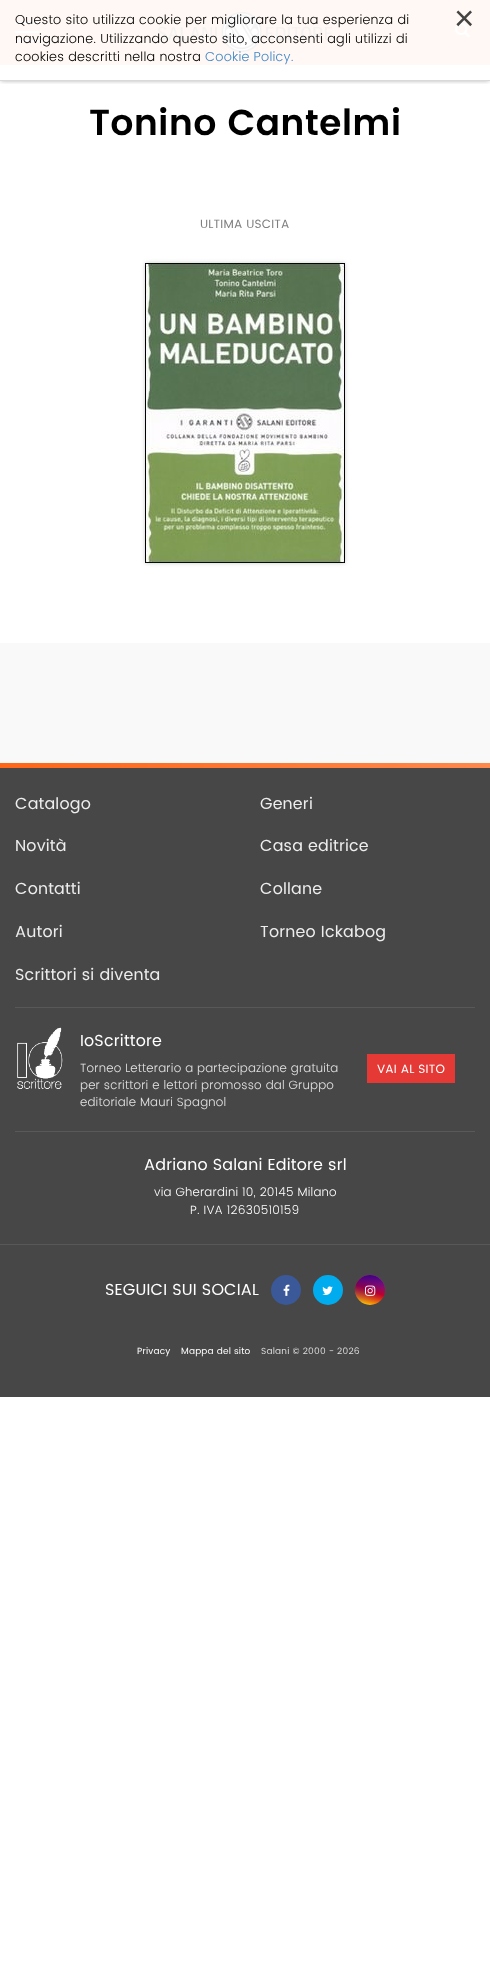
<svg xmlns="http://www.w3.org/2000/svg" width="490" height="1986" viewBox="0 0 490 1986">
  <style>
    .t1 { font: 300 13px Poppins; letter-spacing: 0.2px; fill: #000; }
    .t2 { font: 300 13px Poppins; letter-spacing: 0.2px; fill: #4088c9; }
    .t3 { font: 35px Liberation Sans; letter-spacing: 0.2px; fill: #444; }
    .t4 { font: 600 36px Poppins; letter-spacing: 0.2px; fill: #000; }
    .t5 { font: 12px Poppins; letter-spacing: 0.2px; fill: #7f7f7f; }
    .t6 { font: 16px Poppins; letter-spacing: 0.2px; fill: #ededed; }
    .t7 { font: 16px Poppins; letter-spacing: 0.2px; fill: #fff; }
    .t8 { font: 300 12px Poppins; letter-spacing: 0.2px; fill: #e2e2e2; }
    .t9 { font: 12px Poppins; letter-spacing: 0.2px; fill: #fff; }
    .t10 { font: 300 12px Poppins; letter-spacing: 0.2px; fill: #fff; }
    .t11 { font: 9px Poppins; letter-spacing: 0.2px; fill: #fff; }
    .t12 { font: 9px Poppins; letter-spacing: 0.2px; fill: #dadada; }
  </style>
  <defs>
    <clipPath id="clip1"><rect x="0" y="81" width="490" height="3"/></clipPath>
    <linearGradient id="g1" gradientUnits="userSpaceOnUse" x1="0" y1="766" x2="490" y2="766"><stop offset="0" stop-color="#ff6618"/><stop offset="1" stop-color="#ff884c"/></linearGradient>
    <linearGradient id="g2" gradientUnits="userSpaceOnUse" x1="377" y1="1272" x2="363" y2="1308"><stop offset="0" stop-color="#d047d1"/><stop offset="0.5" stop-color="#f00"/><stop offset="1" stop-color="#ff0"/></linearGradient>
    <linearGradient id="g3" gradientUnits="userSpaceOnUse" x1="370" y1="1275" x2="370" y2="1305"><stop offset="0" stop-color="#400080"/><stop offset="1" stop-color="#400080" stop-opacity="0"/></linearGradient>
  </defs>
  <rect width="100%" height="100%" fill="#fff"/>
  <rect x="0" y="0" width="490" height="64" fill="#fff8f4"/>
  <rect x="0" y="64" width="490" height="1" fill="#fff9f6"/>
  <rect x="15" y="31" width="24" height="2" fill="#fff"/>
  <rect x="15" y="22" width="24" height="2" fill="#fff"/>
  <rect x="15" y="40" width="24" height="2" fill="#fff"/>
  <image x="158" y="12" width="174" height="40" href="images/1.png"/>
  <image x="455" y="22" width="15" height="16" href="images/2.png"/>
  <g clip-path="url(#clip1)">
    <rect x="1" y="2" width="488" height="79" fill="#0000004d" filter="blur(2px)"/>
  </g>
  <rect x="0" y="80" width="490" height="1" fill="#d9d9d9"/>
  <text x="15" y="24" class="t1">Questo sito utilizza cookie per migliorare la tua esperienza di</text>
  <text x="15" y="43" class="t1">navigazione. Utilizzando questo sito, acconsenti agli utilizzi di</text>
  <text x="15" y="61" class="t1">cookies descritti nella nostra</text>
  <text x="205" y="61" class="t2">Cookie Policy.</text>
  <text x="454" y="30" class="t3">×</text>
  <text x="89" y="135" class="t4">Tonino Cantelmi</text>
  <text x="200" y="228" class="t5">ULTIMA USCITA</text>
  <rect x="145" y="263" width="200" height="300" fill="#00000033" filter="blur(2px)"/>
  <image x="145" y="263" width="200" height="300" href="images/3.png"/>
  <rect x="0" y="643" width="490" height="120" fill="#f9f9f9"/>
  <rect x="0" y="768" width="490" height="629" fill="#474747"/>
  <rect x="0" y="763" width="490" height="5" fill="url(#g1)"/>
  <text x="15" y="809" class="t6">Catalogo</text>
  <text x="260" y="809" class="t6">Generi</text>
  <text x="15" y="851" class="t6">Novità</text>
  <text x="260" y="851" class="t6">Casa editrice</text>
  <text x="15" y="894" class="t6">Contatti</text>
  <text x="260" y="894" class="t6">Collane</text>
  <text x="15" y="937" class="t6">Autori</text>
  <text x="260" y="937" class="t6">Torneo Ickabog</text>
  <text x="15" y="980" class="t6">Scrittori si diventa</text>
  <rect x="15" y="1007" width="460" height="1" fill="#585858"/>
  <image x="17" y="1027" width="46" height="62" href="images/4.png"/>
  <text x="80" y="1046" class="t7">IoScrittore</text>
  <text x="80" y="1072" class="t8">Torneo Letterario a partecipazione gratuita</text>
  <text x="80" y="1089" class="t8">per scrittori e lettori promosso dal Gruppo</text>
  <text x="80" y="1106" class="t8">editoriale Mauri Spagnol</text>
  <rect x="367" y="1054" width="88" height="29" fill="#e53935"/>
  <text x="377" y="1073" class="t9">VAI AL SITO</text>
  <rect x="15" y="1131" width="460" height="1" fill="#595959"/>
  <text x="144" y="1170" class="t7">Adriano Salani Editore srl</text>
  <text x="154" y="1196" class="t10">via Gherardini 10, 20145 Milano</text>
  <text x="190" y="1214" class="t10">P. IVA 12630510159</text>
  <rect x="0" y="1244" width="490" height="1" fill="#585858"/>
  <text x="105" y="1295" class="t7">SEGUICI SUI SOCIAL</text>
  <circle cx="286" cy="1290" r="15" fill="#3b5998"/>
  <image x="283" y="1284" width="7" height="12" href="images/5.png"/>
  <circle cx="328" cy="1290" r="15" fill="#00aced"/>
  <image x="322" y="1286" width="11" height="9" href="images/6.png"/>
  <circle cx="370" cy="1290" r="15" fill="url(#g2)"/>
  <circle cx="370" cy="1290" r="15" fill="url(#g3)"/>
  <image x="365" y="1285" width="11" height="11" href="images/7.png"/>
  <text x="137" y="1354" class="t11">Privacy</text>
  <text x="181" y="1354" class="t11">Mappa del sito</text>
  <text x="261" y="1354" class="t12">Salani © 2000 - 2026</text>
</svg>
